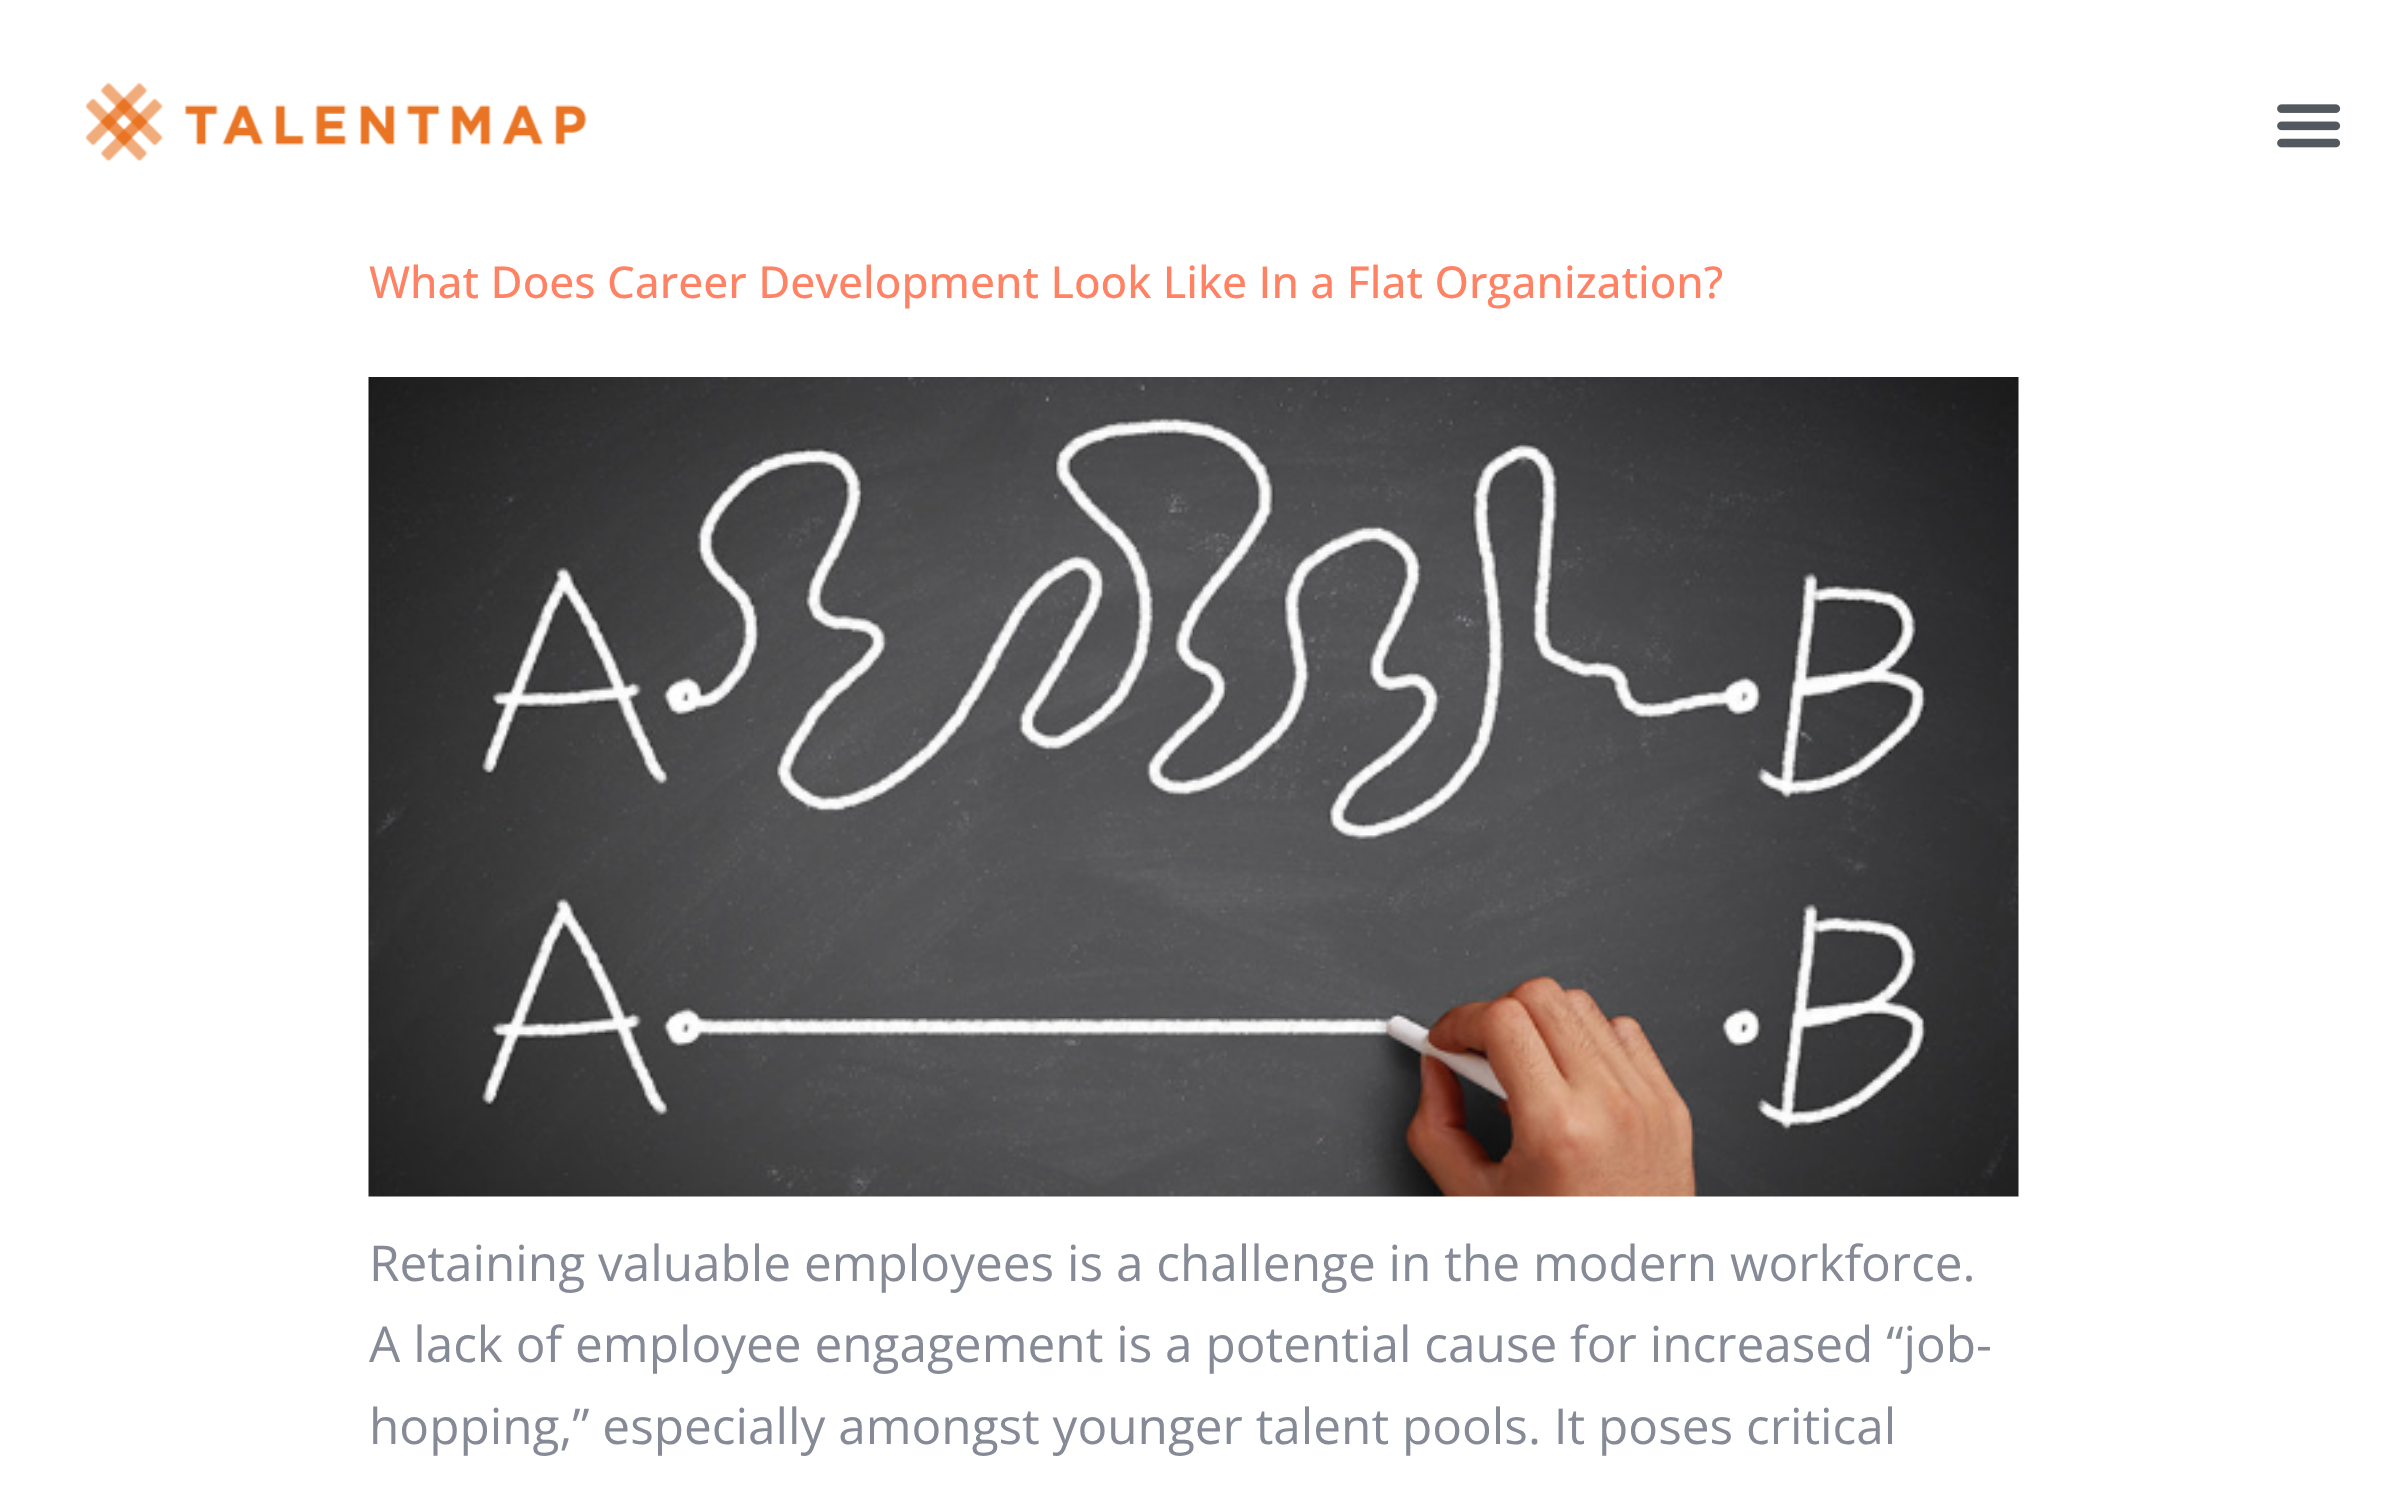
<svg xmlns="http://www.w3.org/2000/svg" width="2386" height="1500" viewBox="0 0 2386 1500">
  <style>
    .t1 { font: 500 44px Open Sans; fill: #ff8264; }
    .t2 { font: 49.5px Open Sans; fill: #858a96; }
  </style>
  <rect width="100%" height="100%" fill="#fff"/>
  <image x="85" y="82" width="502" height="80" href="images/1.png"/>
  <image x="2277" y="104" width="64" height="44" href="images/2.png"/>
  <text x="369" y="298" class="t1">What Does Career Development Look Like In a Flat Organization?</text>
  <image x="368" y="377" width="1651" height="820" href="images/3.png"/>
  <text x="369" y="1281" class="t2">Retaining valuable employees is a challenge in the modern workforce.</text>
  <text x="369" y="1362" class="t2">A lack of employee engagement is a potential cause for increased “job-</text>
  <text x="369" y="1444" class="t2">hopping,” especially amongst younger talent pools. It poses critical</text>
</svg>
